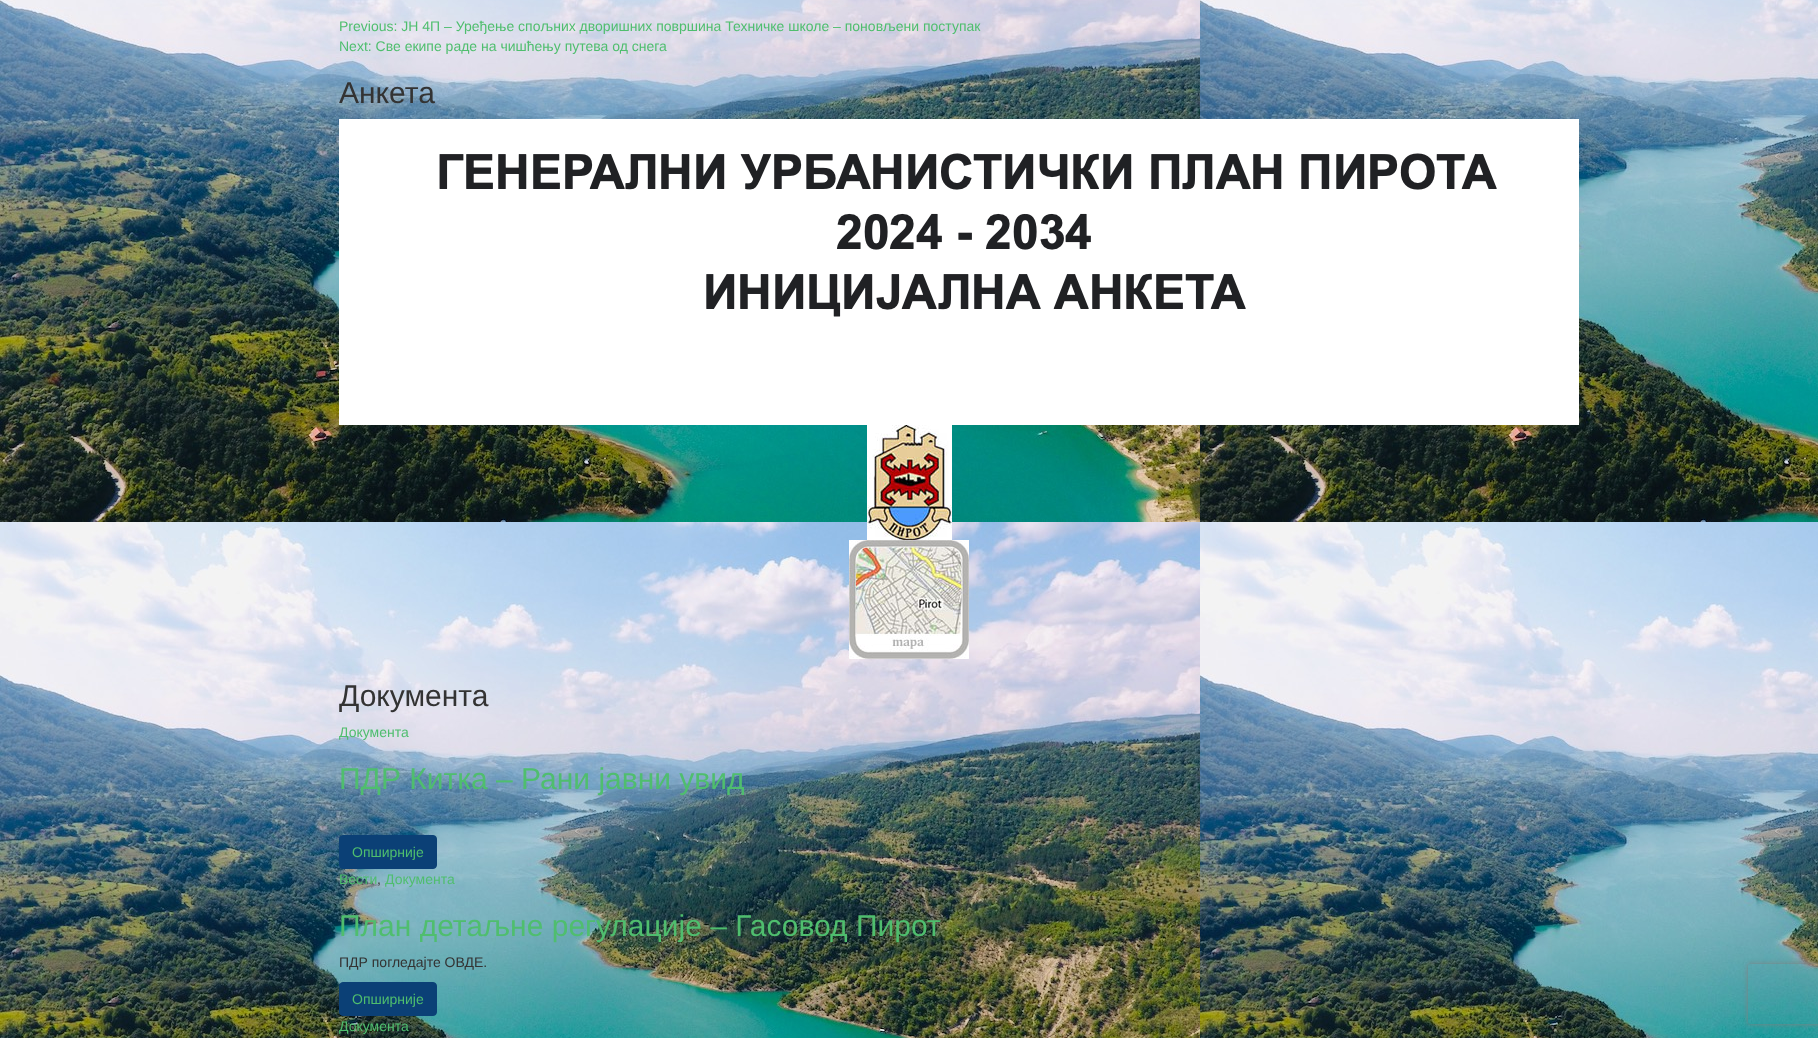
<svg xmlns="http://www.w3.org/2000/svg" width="1818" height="1038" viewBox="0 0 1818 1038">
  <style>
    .t1 { font: 14px Liberation Sans; fill: #4fbe6e; }
    .t2 { font: 30px Liberation Sans; fill: #333; }
    .t3 { font: 30px Liberation Sans; fill: #4fbe6e; }
    .t4 { font: 14px Liberation Sans; fill: #333; }
  </style>
  <defs>
    <clipPath id="clip1"><path d="M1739 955H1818V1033H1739ZM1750 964H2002C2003 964 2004 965 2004 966V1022C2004 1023 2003 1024 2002 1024H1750C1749 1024 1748 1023 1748 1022V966C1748 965 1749 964 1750 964Z" clip-rule="evenodd"/></clipPath>
  </defs>
  <rect width="100%" height="100%" fill="#fff"/>
  <image x="0" y="0" width="1818" height="1038" href="images/1.png"/>
  <text x="339" y="31" class="t1">Previous: ЈН 4П – Уређење спољних дворишних површина Техничке школе – поновљени поступак</text>
  <text x="339" y="51" class="t1">Next: Све екипе раде на чишћењу путева од снега</text>
  <text x="339" y="103" class="t2">Анкета</text>
  <image x="339" y="119" width="1240" height="306" href="images/2.png"/>
  <image x="867" y="425" width="85" height="115" href="images/3.png"/>
  <image x="849" y="540" width="120" height="119" href="images/4.png"/>
  <text x="339" y="706" class="t2">Документа</text>
  <text x="339" y="737" class="t1">Документа</text>
  <text x="339" y="789" class="t3">ПДР Китка – Рани јавни увид</text>
  <rect x="339.5" y="835.5" width="97" height="33" rx="3.5" fill="#0b4076" stroke="#0b4076"/>
  <text x="352" y="857" class="t1">Опширније</text>
  <text x="339" y="884" class="t1">Вести</text>
  <text x="377" y="884" class="t4">,</text>
  <text x="385" y="884" class="t1">Документа</text>
  <text x="339" y="936" class="t3">План детаљне регулације – Гасовод Пирот</text>
  <text x="339" y="967" class="t4">ПДР погледајте ОВДЕ.</text>
  <rect x="339.5" y="982.5" width="97" height="33" rx="3.5" fill="#0b4076" stroke="#0b4076"/>
  <text x="352" y="1004" class="t1">Опширније</text>
  <text x="339" y="1031" class="t1">Документа</text>
  <g clip-path="url(#clip1)">
    <rect x="1748" y="964" width="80" height="60" rx="2" fill="#808080" filter="blur(2.5px)"/>
  </g>
</svg>
